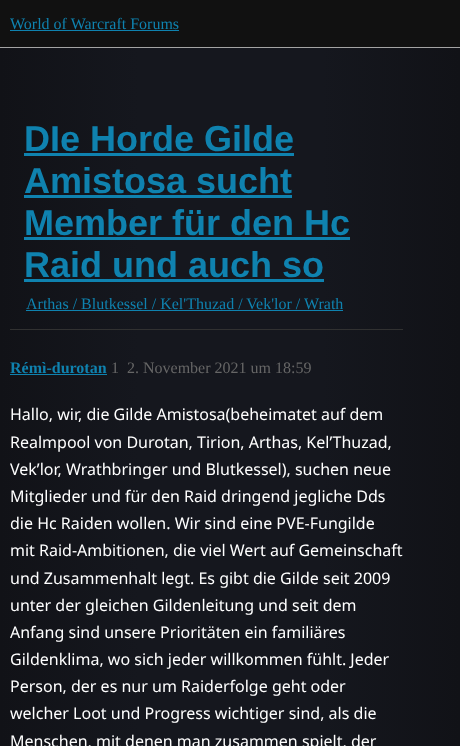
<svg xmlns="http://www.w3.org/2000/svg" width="460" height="746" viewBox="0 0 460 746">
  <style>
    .t1 { font: 16px Liberation Serif; fill: #0f82af; }
    .t2 { font: bold 36px Liberation Sans; fill: #0f82af; }
    .t3 { font: bold 16px Liberation Serif; fill: #0f82af; }
    .t4 { font: 16px Liberation Serif; fill: #666; }
    .t5 { font: 16px Noto Sans; fill: #fff; }
  </style>
  <defs>
    <linearGradient id="g1" gradientUnits="userSpaceOnUse" x1="0" y1="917" x2="460" y2="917"><stop offset="0" stop-color="#111217"/><stop offset="0.3" stop-color="#15171e"/><stop offset="0.7" stop-color="#15171e"/><stop offset="1" stop-color="#111217"/></linearGradient>
  </defs>
  <rect width="100%" height="100%" fill="#fff"/>
  <rect x="0" y="48" width="460" height="698" fill="url(#g1)"/>
  <rect x="0" y="0" width="460" height="47" fill="#111"/>
  <rect x="0" y="47" width="460" height="1" fill="#a4a4a4"/>
  <text x="10" y="29" class="t1">World of Warcraft Forums</text>
  <rect x="10" y="30" width="169" height="1" fill="#0f82af"/>
  <text x="24" y="151" class="t2">DIe Horde Gilde</text>
  <rect x="24" y="153" width="270" height="3" fill="#0f82af"/>
  <text x="24" y="193" class="t2">Amistosa sucht</text>
  <rect x="24" y="195" width="268" height="3" fill="#0f82af"/>
  <text x="24" y="235" class="t2">Member für den Hc</text>
  <rect x="24" y="237" width="326" height="3" fill="#0f82af"/>
  <text x="24" y="277" class="t2">Raid und auch so</text>
  <rect x="24" y="279" width="300" height="3" fill="#0f82af"/>
  <text x="26" y="309" class="t1">Arthas / Blutkessel / Kel'Thuzad / Vek'lor / Wrath</text>
  <rect x="26" y="310" width="317" height="1" fill="#0f82af"/>
  <rect x="10" y="329" width="393" height="1" fill="#313131"/>
  <text x="10" y="373" class="t3">Rémì-durotan</text>
  <rect x="10" y="374" width="97" height="1" fill="#0f82af"/>
  <text x="111" y="373" class="t4">1</text>
  <text x="127" y="373" class="t4">2. November 2021 um 18:59</text>
  <text x="10" y="420" class="t5">Hallo, wir, die Gilde Amistosa(beheimatet auf dem</text>
  <text x="10" y="448" class="t5">Realmpool von Durotan, Tirion, Arthas, Kel’Thuzad,</text>
  <text x="10" y="475" class="t5">Vek’lor, Wrathbringer und Blutkessel), suchen neue</text>
  <text x="10" y="502" class="t5">Mitglieder und für den Raid dringend jegliche Dds</text>
  <text x="10" y="529" class="t5">die Hc Raiden wollen. Wir sind eine PVE-Fungilde</text>
  <text x="10" y="556" class="t5">mit Raid-Ambitionen, die viel Wert auf Gemeinschaft</text>
  <text x="10" y="584" class="t5">und Zusammenhalt legt. Es gibt die Gilde seit 2009</text>
  <text x="10" y="611" class="t5">unter der gleichen Gildenleitung und seit dem</text>
  <text x="10" y="638" class="t5">Anfang sind unsere Prioritäten ein familiäres</text>
  <text x="10" y="665" class="t5">Gildenklima, wo sich jeder willkommen fühlt. Jeder</text>
  <text x="10" y="692" class="t5">Person, der es nur um Raiderfolge geht oder</text>
  <text x="10" y="719" class="t5">welcher Loot und Progress wichtiger sind, als die</text>
  <text x="10" y="747" class="t5">Menschen, mit denen man zusammen spielt, der</text>
</svg>
